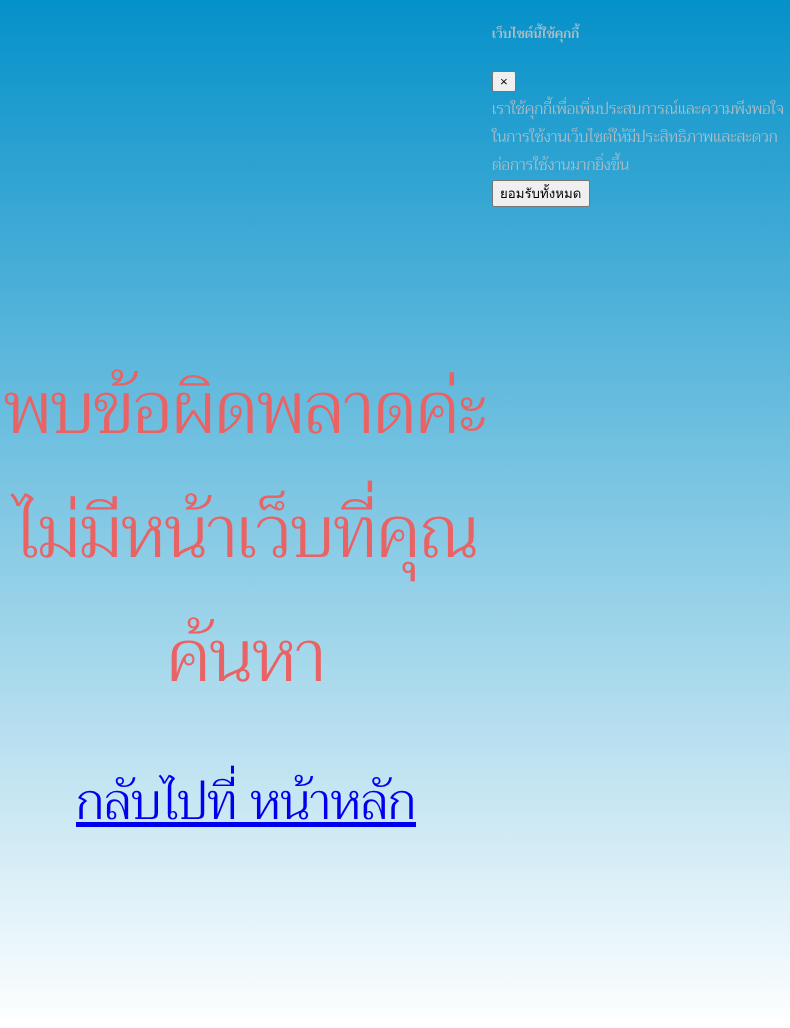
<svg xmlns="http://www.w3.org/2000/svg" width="790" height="1028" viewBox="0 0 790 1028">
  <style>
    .t1 { font: 600 13.25px Trirong; fill: #b0bec5; }
    .t2 { font: 13.25px Liberation Sans; fill: #000; }
    .t3 { font: 300 16px Trirong; fill: #b0bec5; }
    .t4 { font: 13.25px Loma; fill: #000; }
    .t5 { font: 300 72px Trirong; fill: #e96365; }
    .t6 { font: 300 50px Trirong; fill: #00e; }
  </style>
  <defs>
    <linearGradient id="g1" gradientUnits="userSpaceOnUse" x1="395" y1="0" x2="395" y2="1028"><stop offset="0" stop-color="#0591c9"/><stop offset="1" stop-color="#fff"/></linearGradient>
  </defs>
  <rect width="100%" height="100%" fill="#fff"/>
  <rect x="0" y="0" width="790" height="1018" fill="url(#g1)"/>
  <text x="492" y="38" class="t1">เว็บไซต์นี้ใช้คุกกี้</text>
  <rect x="492.5" y="71.5" width="23" height="20" rx="1.5" fill="#efefef" stroke="#767676"/>
  <text x="500" y="86" class="t2">×</text>
  <text x="492" y="114" class="t3">เราใช้คุกกี้เพื่อเพิ่มประสบการณ์และความพึงพอใจ</text>
  <text x="492" y="142" class="t3">ในการใช้งานเว็บไซต์ให้มีประสิทธิภาพและสะดวก</text>
  <text x="492" y="170" class="t3">ต่อการใช้งานมากยิ่งขึ้น</text>
  <rect x="492.5" y="180.5" width="97" height="26" rx="1.5" fill="#efefef" stroke="#767676"/>
  <text x="500" y="198" class="t4">ยอมรับทั้งหมด</text>
  <text x="4" y="433" class="t5">พบข้อผิดพลาดค่ะ</text>
  <text x="14" y="557" class="t5">ไม่มีหน้าเว็บที่คุณ</text>
  <text x="167" y="681" class="t5">ค้นหา</text>
  <text x="76" y="819" class="t6">กลับไปที่ หน้าหลัก</text>
  <rect x="76" y="822" width="340" height="5" fill="#00e"/>
</svg>
